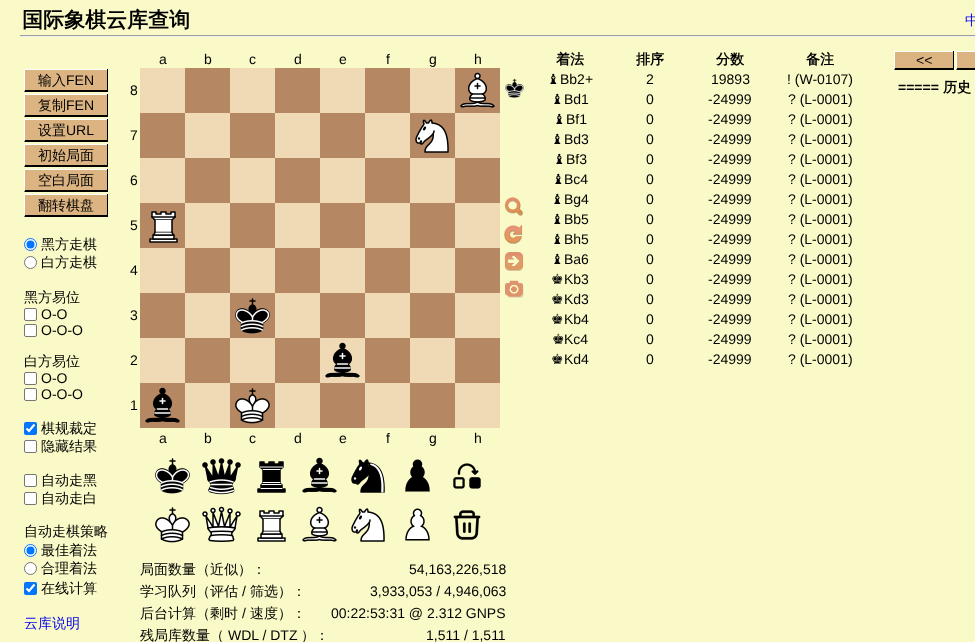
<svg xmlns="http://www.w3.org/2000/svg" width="975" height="642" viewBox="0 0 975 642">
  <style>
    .t1 { font: bold 21px WenQuanYi Zen Hei; fill: #000; }
    .t2 { font: 500 14px WenQuanYi Zen Hei; fill: #00e; }
    .t3 { font: 500 14px WenQuanYi Zen Hei; fill: #000; }
    .t4 { font: 14px Liberation Sans; fill: #000; }
    .t5 { font: bold 14px WenQuanYi Zen Hei; fill: #000; }
    .t6 { font: 14px DejaVu Sans; fill: #000; }
    .t7 { font: bold 14px Liberation Sans; fill: #000; }
  </style>
  <rect width="100%" height="100%" fill="#fafac8"/>
  <text x="22" y="27" class="t1">国际象棋云库查询</text>
  <text x="965" y="25" class="t2">中</text>
  <rect x="20" y="35" width="955" height="1" fill="#9f9f9f"/>
  <rect x="20" y="36" width="955" height="1" fill="#eee"/>
  <rect x="25" y="70" width="82" height="20" fill="#dcb482"/>
  <rect x="24" y="69" width="84" height="1" fill="#fff"/>
  <rect x="107" y="69" width="1" height="23" fill="#000"/>
  <path d="M108 92H24L25 90H107Z" fill="#000"/>
  <path d="M24 92V69L25 70V90Z" fill="#fff"/>
  <text x="38" y="85" class="t3">输入</text>
  <text x="66" y="85" class="t4">FEN</text>
  <rect x="25" y="95" width="82" height="20" fill="#dcb482"/>
  <rect x="24" y="94" width="84" height="1" fill="#fff"/>
  <rect x="107" y="94" width="1" height="23" fill="#000"/>
  <path d="M108 117H24L25 115H107Z" fill="#000"/>
  <path d="M24 117V94L25 95V115Z" fill="#fff"/>
  <text x="38" y="110" class="t3">复制</text>
  <text x="66" y="110" class="t4">FEN</text>
  <rect x="25" y="120" width="82" height="20" fill="#dcb482"/>
  <rect x="24" y="119" width="84" height="1" fill="#fff"/>
  <rect x="107" y="119" width="1" height="23" fill="#000"/>
  <path d="M108 142H24L25 140H107Z" fill="#000"/>
  <path d="M24 142V119L25 120V140Z" fill="#fff"/>
  <text x="38" y="135" class="t3">设置</text>
  <text x="66" y="135" class="t4">URL</text>
  <rect x="25" y="145" width="82" height="20" fill="#dcb482"/>
  <rect x="24" y="144" width="84" height="1" fill="#fff"/>
  <rect x="107" y="144" width="1" height="23" fill="#000"/>
  <path d="M108 167H24L25 165H107Z" fill="#000"/>
  <path d="M24 167V144L25 145V165Z" fill="#fff"/>
  <text x="38" y="160" class="t3">初始局面</text>
  <rect x="25" y="170" width="82" height="20" fill="#dcb482"/>
  <rect x="24" y="169" width="84" height="1" fill="#fff"/>
  <rect x="107" y="169" width="1" height="23" fill="#000"/>
  <path d="M108 192H24L25 190H107Z" fill="#000"/>
  <path d="M24 192V169L25 170V190Z" fill="#fff"/>
  <text x="38" y="185" class="t3">空白局面</text>
  <rect x="25" y="195" width="82" height="20" fill="#dcb482"/>
  <rect x="24" y="194" width="84" height="1" fill="#fff"/>
  <rect x="107" y="194" width="1" height="23" fill="#000"/>
  <path d="M108 217H24L25 215H107Z" fill="#000"/>
  <path d="M24 217V194L25 195V215Z" fill="#fff"/>
  <text x="38" y="210" class="t3">翻转棋盘</text>
  <circle cx="30.5" cy="244.5" r="6" fill="#fff" stroke="#0075ff"/>
  <circle cx="30.5" cy="244.5" r="4" fill="#0075ff"/>
  <text x="41" y="249" class="t3">黑方走棋</text>
  <circle cx="30.5" cy="262.5" r="6" fill="#fff" stroke="#767676"/>
  <text x="41" y="267" class="t3">白方走棋</text>
  <text x="24" y="302" class="t3">黑方易位</text>
  <rect x="24.5" y="308.5" width="12" height="12" rx="1.5" fill="#fff" stroke="#767676"/>
  <text x="41" y="319" class="t4">O-O</text>
  <rect x="24.5" y="324.5" width="12" height="12" rx="1.5" fill="#fff" stroke="#767676"/>
  <text x="41" y="335" class="t4">O-O-O</text>
  <text x="24" y="366" class="t3">白方易位</text>
  <rect x="24.5" y="372.5" width="12" height="12" rx="1.5" fill="#fff" stroke="#767676"/>
  <text x="41" y="383" class="t4">O-O</text>
  <rect x="24.5" y="388.5" width="12" height="12" rx="1.5" fill="#fff" stroke="#767676"/>
  <text x="41" y="399" class="t4">O-O-O</text>
  <rect x="24" y="422" width="13" height="13" rx="2" fill="#0075ff"/>
  <path d="M26.5 428.5L29 431L34.5 424.5" fill="none" stroke="#fff" stroke-width="2.1"/>
  <text x="41" y="433" class="t3">棋规裁定</text>
  <rect x="24.5" y="440.5" width="12" height="12" rx="1.5" fill="#fff" stroke="#767676"/>
  <text x="41" y="451" class="t3">隐藏结果</text>
  <rect x="24.5" y="474.5" width="12" height="12" rx="1.5" fill="#fff" stroke="#767676"/>
  <text x="41" y="485" class="t3">自动走黑</text>
  <rect x="24.5" y="492.5" width="12" height="12" rx="1.5" fill="#fff" stroke="#767676"/>
  <text x="41" y="503" class="t3">自动走白</text>
  <text x="24" y="536" class="t3">自动走棋策略</text>
  <circle cx="30.5" cy="550.5" r="6" fill="#fff" stroke="#0075ff"/>
  <circle cx="30.5" cy="550.5" r="4" fill="#0075ff"/>
  <text x="41" y="555" class="t3">最佳着法</text>
  <circle cx="30.5" cy="568.5" r="6" fill="#fff" stroke="#767676"/>
  <text x="41" y="573" class="t3">合理着法</text>
  <rect x="24" y="582" width="13" height="13" rx="2" fill="#0075ff"/>
  <path d="M26.5 588.5L29 591L34.5 584.5" fill="none" stroke="#fff" stroke-width="2.1"/>
  <text x="41" y="593" class="t3">在线计算</text>
  <text x="24" y="628" class="t2">云库说明</text>
  <text x="159" y="64" class="t4">a</text>
  <text x="204" y="64" class="t4">b</text>
  <text x="249" y="64" class="t4">c</text>
  <text x="294" y="64" class="t4">d</text>
  <text x="339" y="64" class="t4">e</text>
  <text x="386" y="64" class="t4">f</text>
  <text x="429" y="64" class="t4">g</text>
  <text x="474" y="64" class="t4">h</text>
  <text x="130" y="95" class="t4">8</text>
  <text x="130" y="140" class="t4">7</text>
  <text x="130" y="185" class="t4">6</text>
  <text x="130" y="230" class="t4">5</text>
  <text x="130" y="275" class="t4">4</text>
  <text x="130" y="320" class="t4">3</text>
  <text x="130" y="365" class="t4">2</text>
  <text x="130" y="410" class="t4">1</text>
  <image x="140" y="68" width="360" height="360" href="images/1.png"/>
  <image x="460" y="72" width="35" height="36" href="images/2.png"/>
  <image x="415" y="119" width="34" height="34" href="images/3.png"/>
  <image x="149" y="211" width="29" height="32" href="images/4.png"/>
  <image x="235" y="298" width="35" height="36" href="images/5.png"/>
  <image x="325" y="342" width="35" height="36" href="images/6.png"/>
  <image x="145" y="387" width="35" height="36" href="images/7.png"/>
  <image x="235" y="388" width="35" height="36" href="images/8.png"/>
  <image x="505" y="78" width="19" height="20" href="images/9.png"/>
  <image x="504" y="197" width="19" height="19" href="images/10.png"/>
  <image x="504" y="225" width="19" height="19" href="images/11.png"/>
  <image x="504" y="252" width="20" height="19" href="images/12.png"/>
  <image x="505" y="280" width="19" height="18" href="images/13.png"/>
  <text x="159" y="443" class="t4">a</text>
  <text x="204" y="443" class="t4">b</text>
  <text x="249" y="443" class="t4">c</text>
  <text x="294" y="443" class="t4">d</text>
  <text x="339" y="443" class="t4">e</text>
  <text x="386" y="443" class="t4">f</text>
  <text x="429" y="443" class="t4">g</text>
  <text x="474" y="443" class="t4">h</text>
  <image x="155" y="458" width="35" height="36" href="images/14.png"/>
  <image x="202" y="458" width="39" height="37" href="images/15.png"/>
  <image x="257" y="461" width="29" height="32" href="images/16.png"/>
  <image x="302" y="457" width="35" height="36" href="images/17.png"/>
  <image x="351" y="459" width="34" height="34" href="images/18.png"/>
  <image x="405" y="459" width="25" height="33" href="images/19.png"/>
  <image x="453" y="463" width="28" height="26" href="images/20.png"/>
  <image x="155" y="507" width="35" height="36" href="images/21.png"/>
  <image x="202" y="506" width="39" height="36" href="images/22.png"/>
  <image x="257" y="510" width="29" height="32" href="images/23.png"/>
  <image x="302" y="506" width="35" height="36" href="images/24.png"/>
  <image x="351" y="508" width="34" height="34" href="images/25.png"/>
  <image x="405" y="508" width="25" height="33" href="images/26.png"/>
  <image x="453" y="510" width="28" height="30" href="images/27.png"/>
  <text x="140" y="574" class="t3">局面数量（近似）：</text>
  <text x="409" y="574" class="t4">54,163,226,518</text>
  <text x="140" y="596" class="t3">学习队列（评估</text>
  <text x="242" y="596" class="t4">/</text>
  <text x="250" y="596" class="t3">筛选）：</text>
  <text x="370" y="596" class="t4">3,933,053 / 4,946,063</text>
  <text x="140" y="618" class="t3">后台计算（剩时</text>
  <text x="242" y="618" class="t4">/</text>
  <text x="250" y="618" class="t3">速度）：</text>
  <text x="331" y="618" class="t4">00:22:53:31 @ 2.312 GNPS</text>
  <text x="140" y="640" class="t3">残局库数量（</text>
  <text x="228" y="640" class="t4">WDL / DTZ</text>
  <text x="301" y="640" class="t3">）：</text>
  <text x="426" y="640" class="t4">1,511 / 1,511</text>
  <text x="556" y="64" class="t5">着法</text>
  <text x="636" y="64" class="t5">排序</text>
  <text x="716" y="64" class="t5">分数</text>
  <text x="806" y="64" class="t5">备注</text>
  <text x="547" y="84" class="t6">♝</text>
  <text x="560" y="84" class="t4">Bb2+</text>
  <text x="646" y="84" class="t4">2</text>
  <text x="711" y="84" class="t4">19893</text>
  <text x="787" y="84" class="t4">! (W-0107)</text>
  <text x="551" y="104" class="t6">♝</text>
  <text x="564" y="104" class="t4">Bd1</text>
  <text x="646" y="104" class="t4">0</text>
  <text x="708" y="104" class="t4">-24999</text>
  <text x="788" y="104" class="t4">? (L-0001)</text>
  <text x="553" y="124" class="t6">♝</text>
  <text x="566" y="124" class="t4">Bf1</text>
  <text x="646" y="124" class="t4">0</text>
  <text x="708" y="124" class="t4">-24999</text>
  <text x="788" y="124" class="t4">? (L-0001)</text>
  <text x="551" y="144" class="t6">♝</text>
  <text x="564" y="144" class="t4">Bd3</text>
  <text x="646" y="144" class="t4">0</text>
  <text x="708" y="144" class="t4">-24999</text>
  <text x="788" y="144" class="t4">? (L-0001)</text>
  <text x="553" y="164" class="t6">♝</text>
  <text x="566" y="164" class="t4">Bf3</text>
  <text x="646" y="164" class="t4">0</text>
  <text x="708" y="164" class="t4">-24999</text>
  <text x="788" y="164" class="t4">? (L-0001)</text>
  <text x="552" y="184" class="t6">♝</text>
  <text x="564" y="184" class="t4">Bc4</text>
  <text x="646" y="184" class="t4">0</text>
  <text x="708" y="184" class="t4">-24999</text>
  <text x="788" y="184" class="t4">? (L-0001)</text>
  <text x="551" y="204" class="t6">♝</text>
  <text x="564" y="204" class="t4">Bg4</text>
  <text x="646" y="204" class="t4">0</text>
  <text x="708" y="204" class="t4">-24999</text>
  <text x="788" y="204" class="t4">? (L-0001)</text>
  <text x="551" y="224" class="t6">♝</text>
  <text x="564" y="224" class="t4">Bb5</text>
  <text x="646" y="224" class="t4">0</text>
  <text x="708" y="224" class="t4">-24999</text>
  <text x="788" y="224" class="t4">? (L-0001)</text>
  <text x="551" y="244" class="t6">♝</text>
  <text x="564" y="244" class="t4">Bh5</text>
  <text x="646" y="244" class="t4">0</text>
  <text x="708" y="244" class="t4">-24999</text>
  <text x="788" y="244" class="t4">? (L-0001)</text>
  <text x="551" y="264" class="t6">♝</text>
  <text x="564" y="264" class="t4">Ba6</text>
  <text x="646" y="264" class="t4">0</text>
  <text x="708" y="264" class="t4">-24999</text>
  <text x="788" y="264" class="t4">? (L-0001)</text>
  <text x="551" y="284" class="t6">♚</text>
  <text x="564" y="284" class="t4">Kb3</text>
  <text x="646" y="284" class="t4">0</text>
  <text x="708" y="284" class="t4">-24999</text>
  <text x="788" y="284" class="t4">? (L-0001)</text>
  <text x="551" y="304" class="t6">♚</text>
  <text x="564" y="304" class="t4">Kd3</text>
  <text x="646" y="304" class="t4">0</text>
  <text x="708" y="304" class="t4">-24999</text>
  <text x="788" y="304" class="t4">? (L-0001)</text>
  <text x="551" y="324" class="t6">♚</text>
  <text x="564" y="324" class="t4">Kb4</text>
  <text x="646" y="324" class="t4">0</text>
  <text x="708" y="324" class="t4">-24999</text>
  <text x="788" y="324" class="t4">? (L-0001)</text>
  <text x="552" y="344" class="t6">♚</text>
  <text x="564" y="344" class="t4">Kc4</text>
  <text x="646" y="344" class="t4">0</text>
  <text x="708" y="344" class="t4">-24999</text>
  <text x="788" y="344" class="t4">? (L-0001)</text>
  <text x="551" y="364" class="t6">♚</text>
  <text x="564" y="364" class="t4">Kd4</text>
  <text x="646" y="364" class="t4">0</text>
  <text x="708" y="364" class="t4">-24999</text>
  <text x="788" y="364" class="t4">? (L-0001)</text>
  <rect x="895" y="52" width="58" height="16" fill="#dcb482"/>
  <rect x="894" y="51" width="60" height="1" fill="#fff"/>
  <rect x="953" y="51" width="1" height="19" fill="#000"/>
  <path d="M954 70H894L895 68H953Z" fill="#000"/>
  <path d="M894 70V51L895 52V68Z" fill="#fff"/>
  <text x="916" y="65" class="t4">&lt;&lt;</text>
  <rect x="957" y="52" width="18" height="16" fill="#dcb482"/>
  <rect x="956" y="51" width="19" height="1" fill="#fff"/>
  <path d="M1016 70H956L957 68H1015Z" fill="#000"/>
  <path d="M956 70V51L957 52V68Z" fill="#fff"/>
  <text x="898" y="92" class="t7">=====</text>
  <text x="943" y="92" class="t5">历史</text>
</svg>
